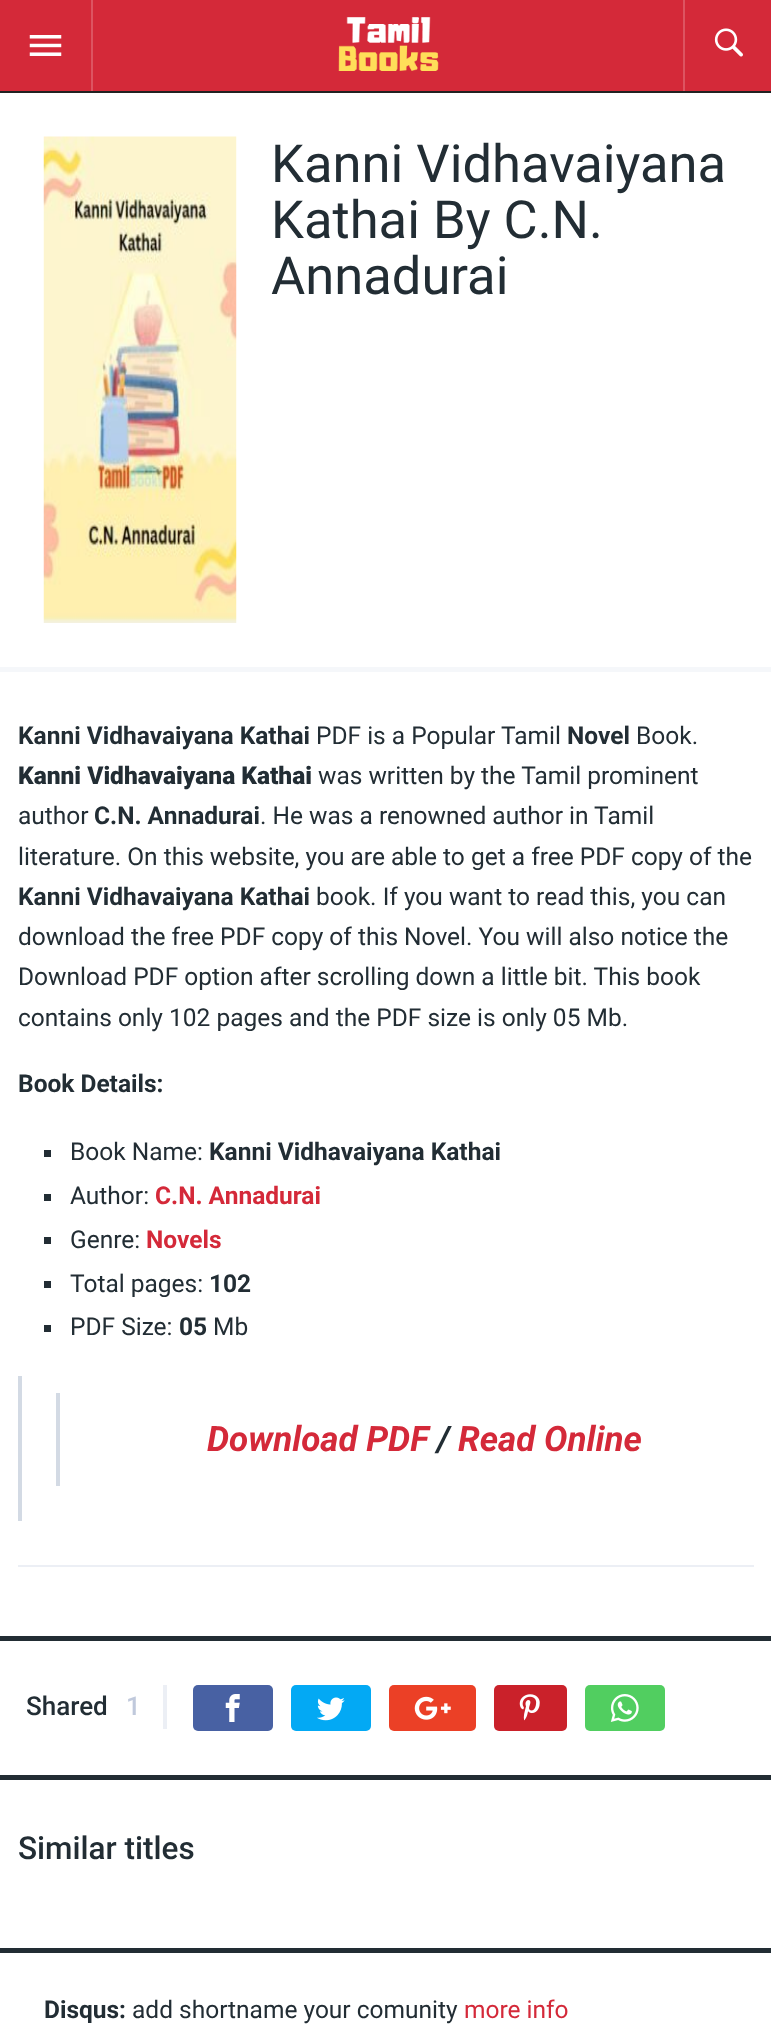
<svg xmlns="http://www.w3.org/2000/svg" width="771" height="2036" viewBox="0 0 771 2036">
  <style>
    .t1 { font: 52.5px Roboto; fill: #222d34; }
    .t2 { font: bold 24.5px Roboto; fill: #222d34; }
    .t3 { font: 24.5px Roboto; fill: #222d34; }
    .t4 { font: 900 24.5px Roboto; fill: #222d34; }
    .t5 { font: bold 24.5px Roboto; fill: #d42939; }
    .t6 { font: italic bold 35px Roboto; fill: #d42939; }
    .t7 { font: italic bold 35px Roboto; fill: #222d34; }
    .t8 { font: 500 26px Roboto; fill: #222d34; }
    .t9 { font: 500 26px Roboto; fill: #c0c9dc; }
    .t10 { font: 500 31.5px Roboto; fill: #222d34; }
    .t11 { font: 24.5px Roboto; fill: #d42939; }
  </style>
  <rect width="100%" height="100%" fill="#d42939"/>
  <rect x="0" y="91" width="771" height="2" fill="#212121"/>
  <rect x="91" y="0" width="2" height="91" fill="#dd5461"/>
  <image x="29" y="35" width="33" height="21" href="images/1.png"/>
  <image x="338" y="17" width="101" height="54" href="images/2.png"/>
  <rect x="683" y="0" width="2" height="91" fill="#dd5461"/>
  <image x="714" y="28" width="29" height="29" href="images/3.png"/>
  <rect x="0" y="93" width="771" height="1943" fill="#fff"/>
  <rect x="0" y="667" width="771" height="5" fill="#f5f7fa"/>
  <image x="43" y="136" width="194" height="487" href="images/4.png"/>
  <text x="271" y="182" class="t1">Kanni Vidhavaiyana</text>
  <text x="271" y="238" class="t1">Kathai By C.N.</text>
  <text x="271" y="294" class="t1">Annadurai</text>
  <rect x="0" y="1636" width="771" height="5" fill="#222d34"/>
  <rect x="18" y="1565" width="736" height="2" fill="#eceff5"/>
  <text x="18" y="744" class="t2">Kanni Vidhavaiyana Kathai</text>
  <text x="316" y="744" class="t3">PDF is a Popular Tamil</text>
  <text x="567" y="744" class="t2">Novel</text>
  <text x="636" y="744" class="t3">Book.</text>
  <text x="18" y="784" class="t4">Kanni Vidhavaiyana Kathai</text>
  <text x="318" y="784" class="t3">was written by the Tamil prominent</text>
  <text x="18" y="824" class="t3">author</text>
  <text x="94" y="824" class="t2">C.N. Annadurai</text>
  <text x="260" y="824" class="t3">. He was a renowned author in Tamil</text>
  <text x="18" y="865" class="t3">literature. On this website, you are able to get a free PDF copy of the</text>
  <text x="18" y="905" class="t2">Kanni Vidhavaiyana Kathai</text>
  <text x="316" y="905" class="t3">book. If you want to read this, you can</text>
  <text x="18" y="945" class="t3">download the free PDF copy of this Novel. You will also notice the</text>
  <text x="18" y="985" class="t3">Download PDF option after scrolling down a little bit. This book</text>
  <text x="18" y="1026" class="t3">contains only 102 pages and the PDF size is only 05 Mb.</text>
  <text x="18" y="1092" class="t2">Book Details:</text>
  <rect x="44" y="1150" width="7" height="7" fill="#222d34"/>
  <text x="70" y="1160" class="t3">Book Name:</text>
  <text x="209" y="1160" class="t2">Kanni Vidhavaiyana Kathai</text>
  <rect x="44" y="1194" width="7" height="7" fill="#222d34"/>
  <text x="70" y="1204" class="t3">Author:</text>
  <text x="155" y="1204" class="t5">C.N. Annadurai</text>
  <rect x="44" y="1237" width="7" height="7" fill="#222d34"/>
  <text x="70" y="1248" class="t3">Genre:</text>
  <text x="146" y="1248" class="t5">Novels</text>
  <rect x="44" y="1281" width="7" height="7" fill="#222d34"/>
  <text x="70" y="1292" class="t3">Total pages:</text>
  <text x="209" y="1292" class="t2">102</text>
  <rect x="44" y="1325" width="7" height="7" fill="#222d34"/>
  <text x="70" y="1335" class="t3">PDF Size:</text>
  <text x="179" y="1335" class="t2">05</text>
  <text x="213" y="1335" class="t3">Mb</text>
  <rect x="18" y="1376" width="4" height="145" fill="#d3dae4"/>
  <rect x="56" y="1393" width="4" height="93" fill="#d3dae4"/>
  <text x="207" y="1451" class="t6">Download PDF</text>
  <text x="437" y="1451" class="t7">/</text>
  <text x="458" y="1451" class="t6">Read Online</text>
  <rect x="0" y="1775" width="771" height="5" fill="#222d34"/>
  <rect x="163" y="1685" width="4" height="44" fill="#eceff5"/>
  <text x="26" y="1715" class="t8">Shared</text>
  <text x="126" y="1715" class="t9">1</text>
  <rect x="193" y="1685" width="80" height="46" rx="5" fill="#4861a3"/>
  <image x="225" y="1694" width="15" height="28" href="images/5.png"/>
  <rect x="291" y="1685" width="80" height="46" rx="5" fill="#03a9f4"/>
  <image x="317" y="1697" width="28" height="24" href="images/6.png"/>
  <rect x="389" y="1685" width="87" height="46" rx="5" fill="#eb4026"/>
  <image x="414" y="1696" width="37" height="24" href="images/7.png"/>
  <rect x="494" y="1685" width="73" height="46" rx="5" fill="#ca212a"/>
  <image x="519" y="1694" width="21" height="27" href="images/8.png"/>
  <rect x="585" y="1685" width="80" height="46" rx="5" fill="#51ce60"/>
  <image x="610" y="1694" width="29" height="28" href="images/9.png"/>
  <rect x="0" y="1948" width="771" height="5" fill="#222d34"/>
  <text x="18" y="1859" class="t10">Similar titles</text>
  <text x="44" y="2018" class="t2">Disqus:</text>
  <text x="132" y="2018" class="t3">add shortname your comunity</text>
  <text x="464" y="2018" class="t11">more info</text>
</svg>
